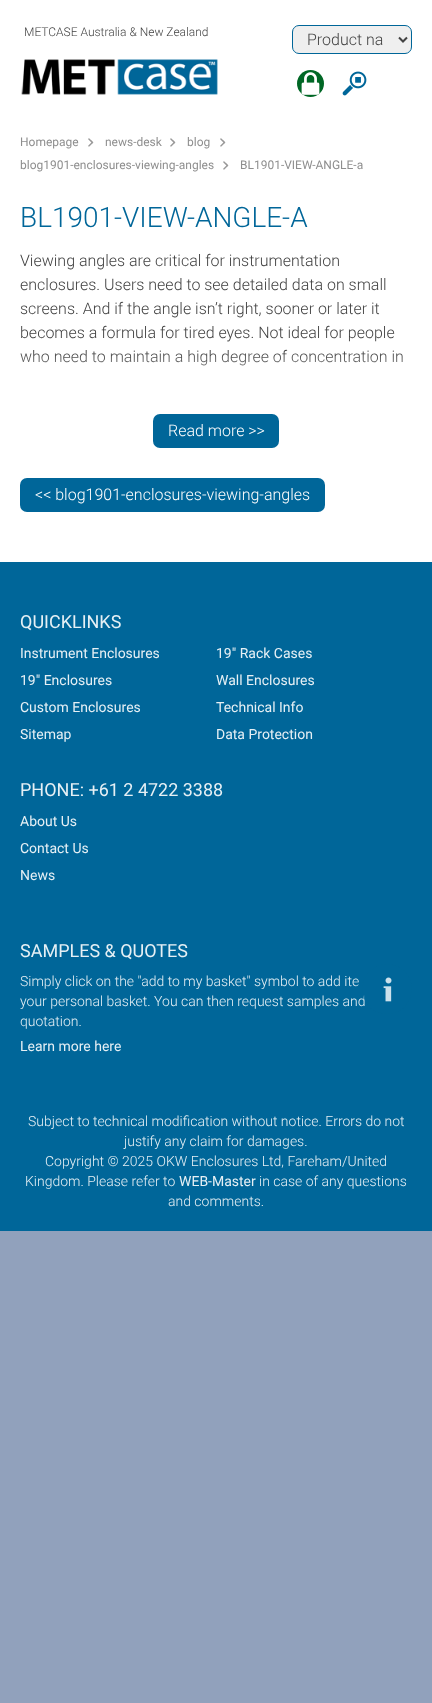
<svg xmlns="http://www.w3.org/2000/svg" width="432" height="1703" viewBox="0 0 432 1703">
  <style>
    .t1 { font: 300 12px Roboto; fill: #424242; }
    .t2 { font: 300 16px Roboto; fill: #424242; }
    .t3 { font: 12px Roboto; fill: #8e8e8e; }
    .t4 { font: 300 28px Roboto; fill: #069; }
    .t5 { font: 300 16px Roboto; fill: #fff; }
    .t6 { font: 18px Roboto; fill: #e6f0f5; }
    .t7 { font: 14px Roboto; fill: #e6f0f5; }
    .t8 { font: 300 14px Roboto; fill: #e6f0f5; }
  </style>
  <rect width="100%" height="100%" fill="#91a1bc"/>
  <rect x="0" y="0" width="432" height="120" fill="#fff"/>
  <text x="24" y="36" class="t1">METCASE Australia &amp; New Zealand</text>
  <image x="21" y="59" width="197" height="36" href="images/1.png"/>
  <rect x="292.5" y="25.5" width="119" height="28" rx="6.5" fill="#efefef" stroke="#069"/>
  <path d="M399 37.5L403 41.5L407 37.5" fill="none" stroke="#424242" stroke-width="2"/>
  <text x="307" y="45" class="t2">Product na</text>
  <circle cx="310.5" cy="83.5" r="13.5" fill="#006725"/>
  <image x="301" y="72" width="19" height="23" href="images/2.png"/>
  <image x="342" y="71" width="25" height="25" href="images/3.png"/>
  <rect x="0" y="120" width="432" height="442" fill="#fff"/>
  <image x="88" y="138" width="6" height="9" href="images/4.png"/>
  <text x="20" y="146" class="t3">Homepage</text>
  <image x="170" y="138" width="6" height="9" href="images/4.png"/>
  <text x="105" y="146" class="t3">news-desk</text>
  <image x="220" y="138" width="6" height="9" href="images/4.png"/>
  <text x="187" y="146" class="t3">blog</text>
  <image x="223" y="161" width="6" height="9" href="images/4.png"/>
  <text x="20" y="169" class="t3">blog1901-enclosures-viewing-angles</text>
  <text x="240" y="169" class="t3">BL1901-VIEW-ANGLE-a</text>
  <text x="20" y="227" class="t4">BL1901-VIEW-ANGLE-A</text>
  <text x="20" y="266" class="t2">Viewing angles are critical for instrumentation</text>
  <text x="20" y="290" class="t2">enclosures. Users need to see detailed data on small</text>
  <text x="20" y="314" class="t2">screens. And if the angle isn’t right, sooner or later it</text>
  <text x="20" y="338" class="t2">becomes a formula for tired eyes. Not ideal for people</text>
  <text x="20" y="362" class="t2">who need to maintain a high degree of concentration in</text>
  <image x="20" y="352" width="383" height="35" href="images/5.png"/>
  <rect x="153" y="414" width="126" height="34" rx="7" fill="#069"/>
  <text x="168" y="436" class="t5">Read more &gt;&gt;</text>
  <rect x="20" y="478" width="305" height="34" rx="7" fill="#069"/>
  <text x="35" y="500" class="t5">&lt;&lt; blog1901-enclosures-viewing-angles</text>
  <rect x="0" y="562" width="432" height="669" fill="#069"/>
  <text x="20" y="628" class="t6">QUICKLINKS</text>
  <text x="20" y="658" class="t7">Instrument Enclosures</text>
  <text x="216" y="658" class="t7">19" Rack Cases</text>
  <text x="20" y="685" class="t7">19" Enclosures</text>
  <text x="216" y="685" class="t7">Wall Enclosures</text>
  <text x="20" y="712" class="t7">Custom Enclosures</text>
  <text x="216" y="712" class="t7">Technical Info</text>
  <text x="20" y="739" class="t7">Sitemap</text>
  <text x="216" y="739" class="t7">Data Protection</text>
  <text x="20" y="796" class="t6">PHONE: +61 2 4722 3388</text>
  <text x="20" y="826" class="t7">About Us</text>
  <text x="20" y="853" class="t7">Contact Us</text>
  <text x="20" y="880" class="t7">News</text>
  <text x="20" y="957" class="t6">SAMPLES &amp; QUOTES</text>
  <text x="20" y="986" class="t8">Simply click on the "add to my basket" symbol to add ite</text>
  <text x="20" y="1006" class="t8">your personal basket. You can then request samples and</text>
  <text x="20" y="1026" class="t8">quotation.</text>
  <text x="20" y="1051" class="t7">Learn more here</text>
  <text x="28" y="1126" class="t8">Subject to technical modification without notice. Errors do not</text>
  <text x="124" y="1146" class="t8">justify any claim for damages.</text>
  <text x="45" y="1166" class="t8">Copyright © 2025 OKW Enclosures Ltd, Fareham/United</text>
  <text x="25" y="1186" class="t8">Kingdom. Please refer to</text>
  <text x="179" y="1186" class="t7">WEB-Master</text>
  <text x="259" y="1186" class="t8">in case of any questions</text>
  <text x="168" y="1206" class="t8">and comments.</text>
  <circle cx="387" cy="989" r="25" fill="#006699cc"/>
  <image x="383" y="977" width="9" height="25" href="images/6.png"/>
</svg>
